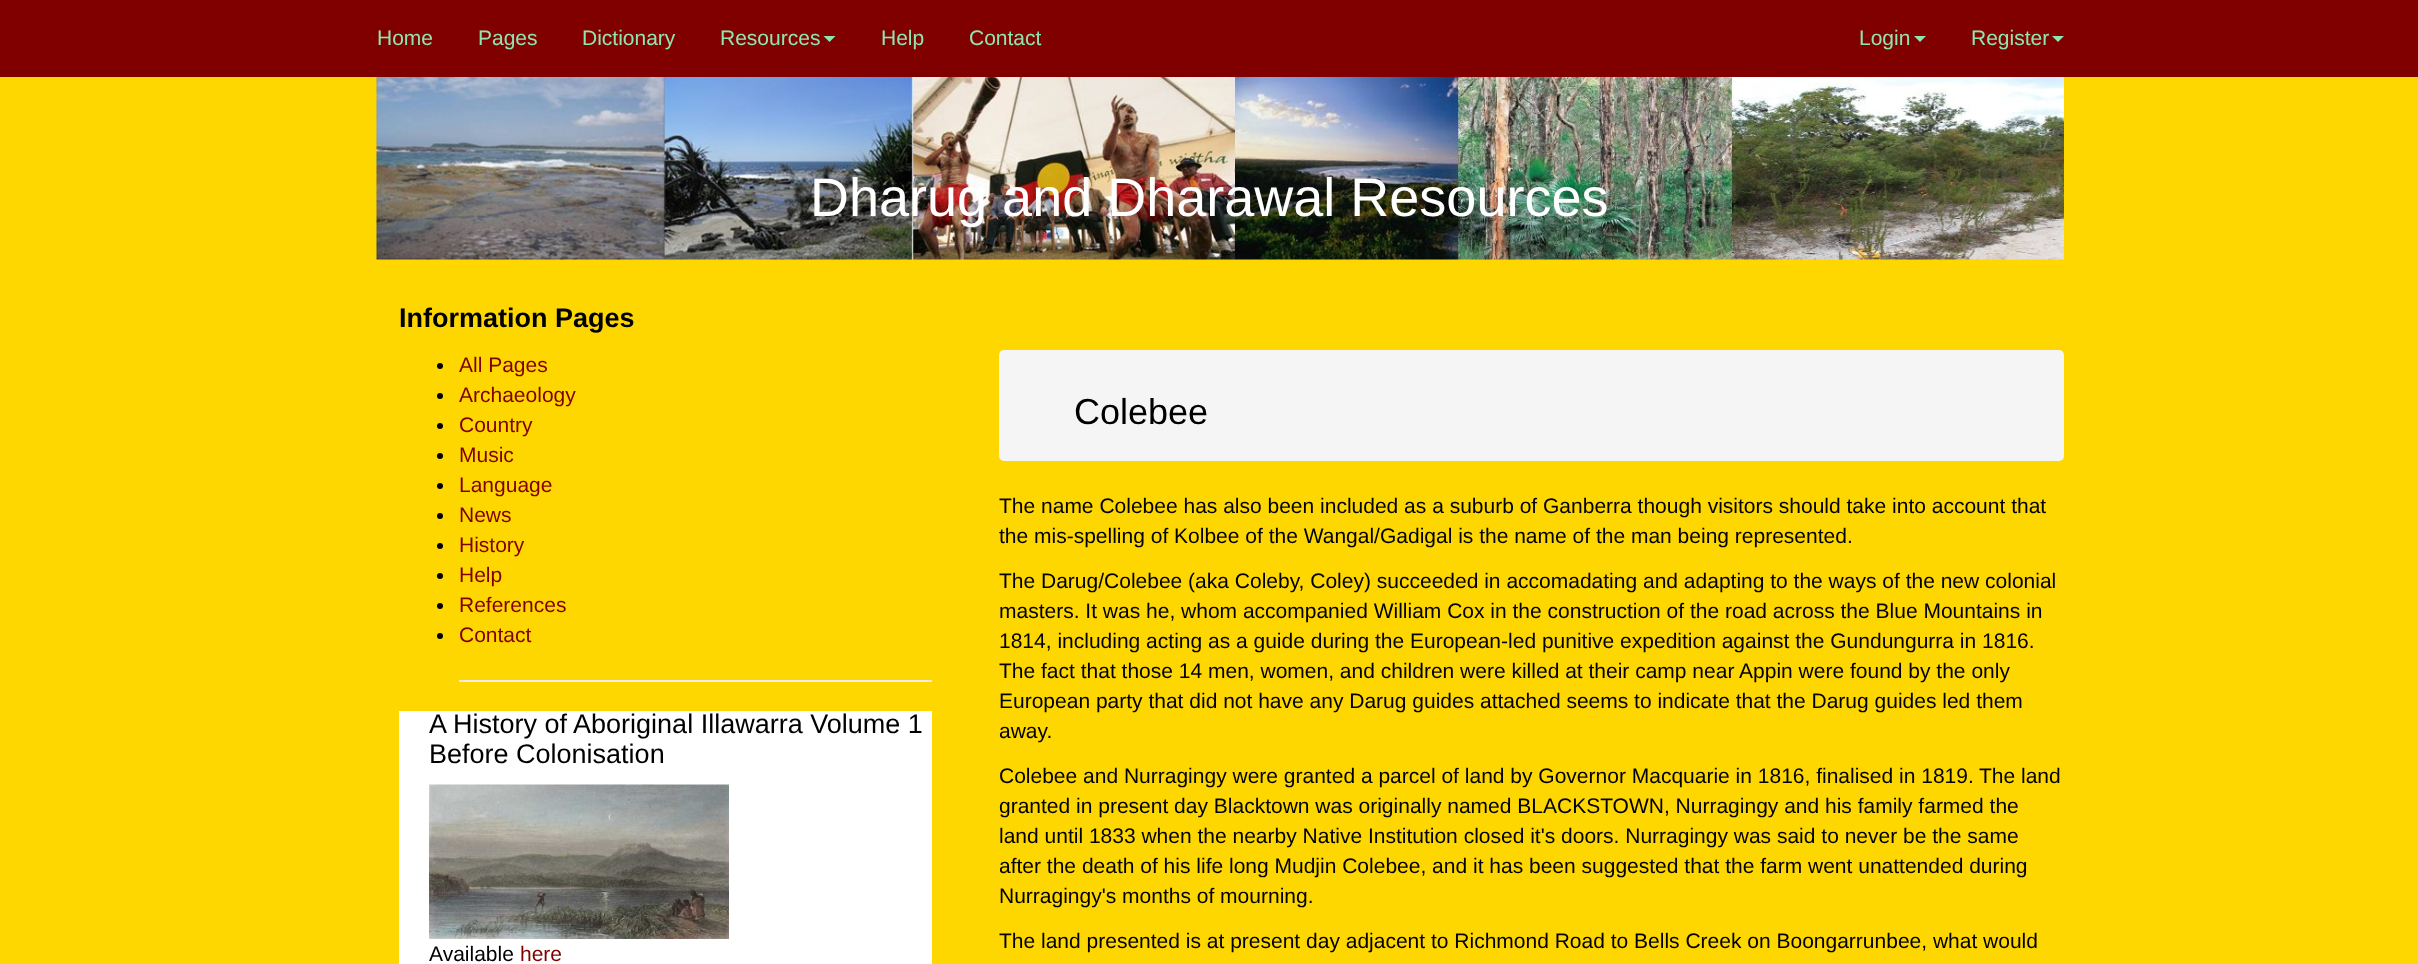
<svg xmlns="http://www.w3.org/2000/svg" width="2418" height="964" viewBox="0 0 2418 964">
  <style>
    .t1 { font: 21px Liberation Sans; fill: #8fe5b0; }
    .t2 { font: 54px Liberation Sans; fill: #fff; }
    .t3 { font: bold 27px Liberation Sans; fill: #000; }
    .t4 { font: 21px Liberation Sans; fill: #800000; }
    .t5 { font: 27px Liberation Sans; fill: #000; }
    .t6 { font: 21px Liberation Sans; fill: #000; }
    .t7 { font: 36px Liberation Sans; fill: #000; }
  </style>
  <rect width="100%" height="100%" fill="#ffd700"/>
  <rect x="0" y="0" width="2418" height="77" fill="#800000"/>
  <text x="377" y="45" class="t1">Home</text>
  <text x="478" y="45" class="t1">Pages</text>
  <text x="582" y="45" class="t1">Dictionary</text>
  <text x="720" y="45" class="t1">Resources</text>
  <path d="M823.5 36H835.5L829.5 42Z" fill="#8fe5b0"/>
  <text x="881" y="45" class="t1">Help</text>
  <text x="969" y="45" class="t1">Contact</text>
  <text x="1859" y="45" class="t1">Login</text>
  <path d="M1914 36H1926L1920 42Z" fill="#8fe5b0"/>
  <text x="1971" y="45" class="t1">Register</text>
  <path d="M2052 36H2064L2058 42Z" fill="#8fe5b0"/>
  <image x="376" y="77" width="1688" height="183" href="images/1.png"/>
  <text x="810" y="216" class="t2">Dharug and Dharawal Resources</text>
  <text x="399" y="327" class="t3">Information Pages</text>
  <circle cx="440" cy="366" r="3" fill="#000"/>
  <text x="459" y="372" class="t4">All Pages</text>
  <circle cx="440" cy="396" r="3" fill="#000"/>
  <text x="459" y="402" class="t4">Archaeology</text>
  <circle cx="440" cy="426" r="3" fill="#000"/>
  <text x="459" y="432" class="t4">Country</text>
  <circle cx="440" cy="456" r="3" fill="#000"/>
  <text x="459" y="462" class="t4">Music</text>
  <circle cx="440" cy="486" r="3" fill="#000"/>
  <text x="459" y="492" class="t4">Language</text>
  <circle cx="440" cy="516" r="3" fill="#000"/>
  <text x="459" y="522" class="t4">News</text>
  <circle cx="440" cy="546" r="3" fill="#000"/>
  <text x="459" y="552" class="t4">History</text>
  <circle cx="440" cy="576" r="3" fill="#000"/>
  <text x="459" y="582" class="t4">Help</text>
  <circle cx="440" cy="606" r="3" fill="#000"/>
  <text x="459" y="612" class="t4">References</text>
  <circle cx="440" cy="636" r="3" fill="#000"/>
  <text x="459" y="642" class="t4">Contact</text>
  <rect x="459" y="680" width="473" height="2" fill="#eee"/>
  <rect x="399" y="711" width="533" height="253" fill="#fff"/>
  <text x="429" y="733" class="t5">A History of Aboriginal Illawarra Volume 1</text>
  <text x="429" y="763" class="t5">Before Colonisation</text>
  <image x="429" y="784" width="300" height="155" href="images/2.png"/>
  <text x="429" y="961" class="t6">Available</text>
  <text x="520" y="961" class="t4">here</text>
  <rect x="999" y="350" width="1065" height="111" rx="5" fill="#f5f5f5"/>
  <text x="1074" y="424" class="t7">Colebee</text>
  <text x="999" y="513" class="t6">The name Colebee has also been included as a suburb of Ganberra though visitors should take into account that</text>
  <text x="999" y="543" class="t6">the mis-spelling of Kolbee of the Wangal/Gadigal is the name of the man being represented.</text>
  <text x="999" y="588" class="t6">The Darug/Colebee (aka Coleby, Coley) succeeded in accomadating and adapting to the ways of the new colonial</text>
  <text x="999" y="618" class="t6">masters. It was he, whom accompanied William Cox in the construction of the road across the Blue Mountains in</text>
  <text x="999" y="648" class="t6">1814, including acting as a guide during the European-led punitive expedition against the Gundungurra in 1816.</text>
  <text x="999" y="678" class="t6">The fact that those 14 men, women, and children were killed at their camp near Appin were found by the only</text>
  <text x="999" y="708" class="t6">European party that did not have any Darug guides attached seems to indicate that the Darug guides led them</text>
  <text x="999" y="738" class="t6">away.</text>
  <text x="999" y="783" class="t6">Colebee and Nurragingy were granted a parcel of land by Governor Macquarie in 1816, finalised in 1819.</text>
  <text x="1979" y="783" class="t6">The land</text>
  <text x="999" y="813" class="t6">granted in present day Blacktown was originally named BLACKSTOWN, Nurragingy and his family farmed the</text>
  <text x="999" y="843" class="t6">land until 1833 when the nearby Native Institution closed it's doors. Nurragingy was said to never be the same</text>
  <text x="999" y="873" class="t6">after the death of his life long Mudjin Colebee, and it has been suggested that the farm went unattended during</text>
  <text x="999" y="903" class="t6">Nurragingy's months of mourning.</text>
  <text x="999" y="948" class="t6">The land presented is at present day adjacent to Richmond Road to Bells Creek on Boongarrunbee, what would</text>
</svg>
